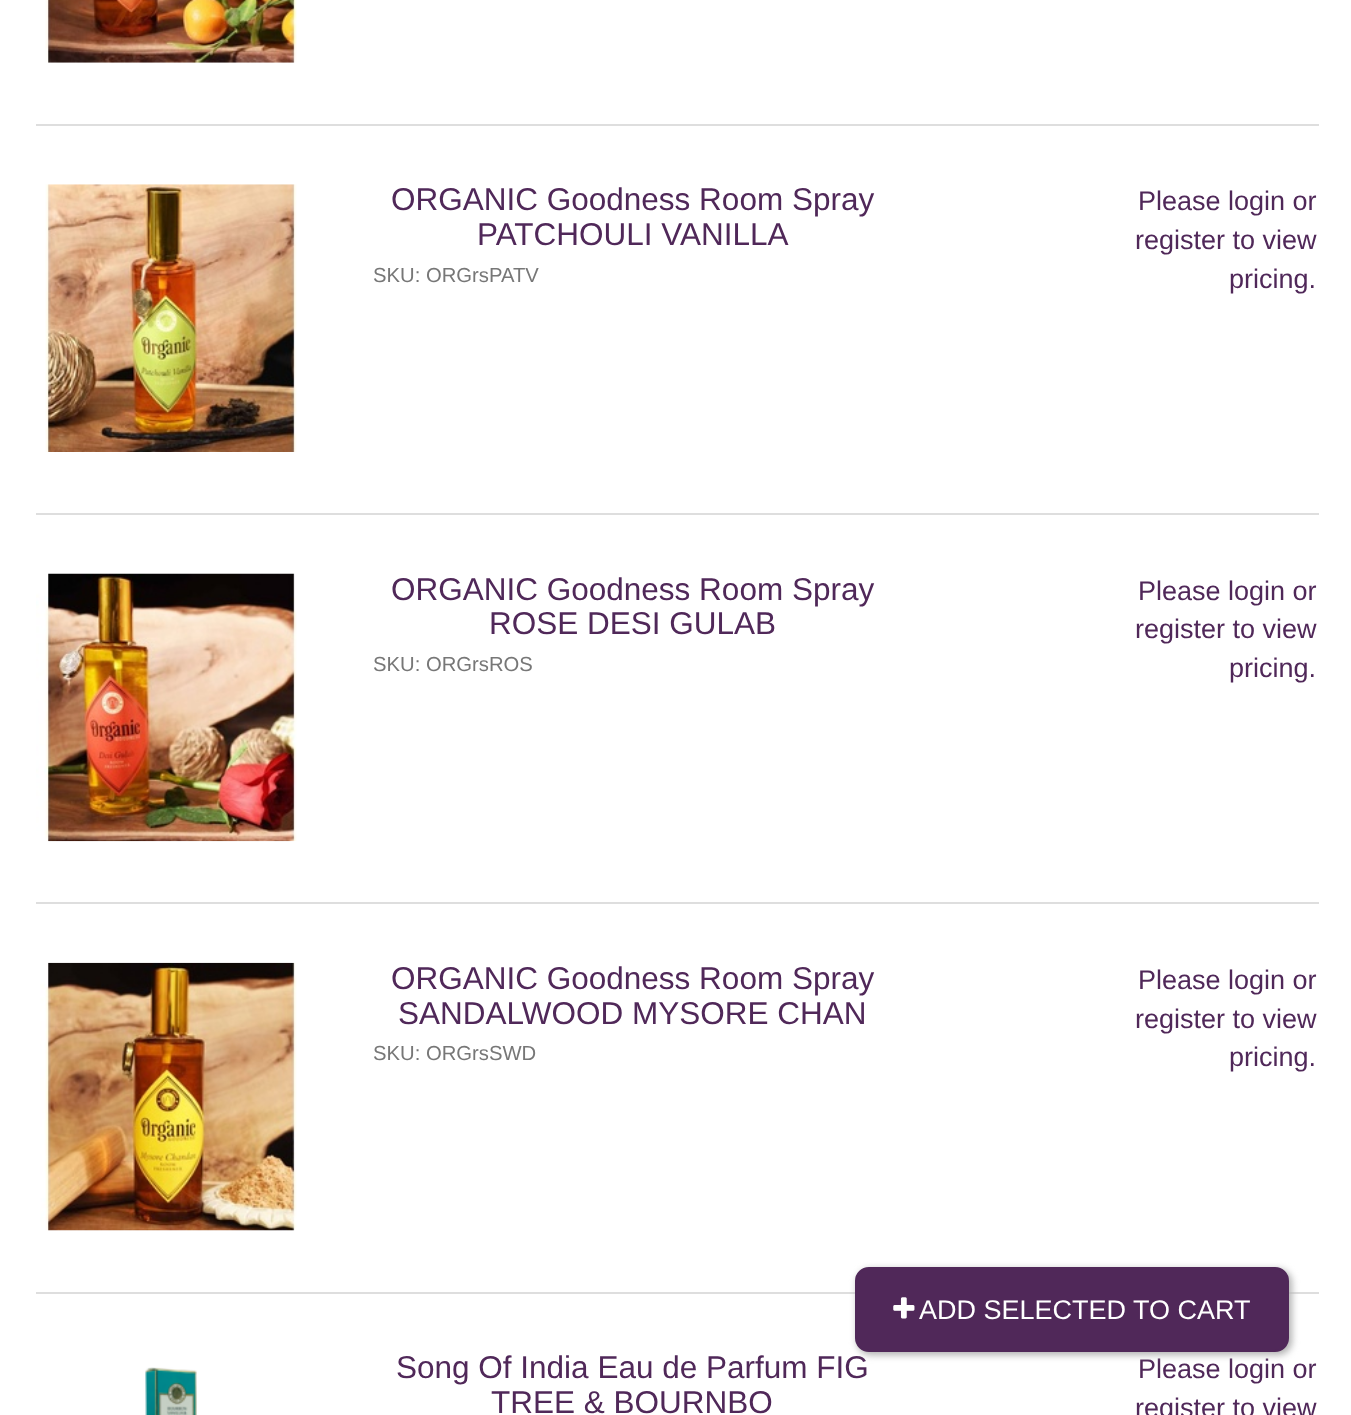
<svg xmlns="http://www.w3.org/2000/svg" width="1351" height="1415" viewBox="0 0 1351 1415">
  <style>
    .t1 { font: 31.5px Liberation Sans; fill: #502859; }
    .t2 { font: 20.25px Liberation Sans; fill: #777; }
    .t3 { font: 27px Liberation Sans; fill: #502859; }
    .t4 { font: 27px Liberation Sans; fill: #fff; }
  </style>
  <rect width="100%" height="100%" fill="#fff"/>
  <rect x="34" y="124" width="1285" height="2" fill="#dedede"/>
  <rect x="34" y="124" width="2" height="2" fill="#fff"/>
  <image x="45" y="0" width="252" height="63" href="images/1.png"/>
  <rect x="34" y="513" width="1285" height="2" fill="#dedede"/>
  <rect x="34" y="513" width="2" height="2" fill="#fff"/>
  <image x="45" y="184" width="252" height="268" href="images/2.png"/>
  <text x="391" y="210" class="t1">ORGANIC Goodness Room Spray</text>
  <text x="477" y="245" class="t1">PATCHOULI VANILLA</text>
  <text x="373" y="282" class="t2">SKU: ORGrsPATV</text>
  <text x="1138" y="210" class="t3">Please login or</text>
  <text x="1135" y="249" class="t3">register to view</text>
  <text x="1229" y="288" class="t3">pricing.</text>
  <rect x="34" y="902" width="1285" height="2" fill="#dedede"/>
  <rect x="34" y="902" width="2" height="3" fill="#fff"/>
  <image x="36" y="573" width="261" height="269" href="images/3.png"/>
  <text x="391" y="600" class="t1">ORGANIC Goodness Room Spray</text>
  <text x="489" y="634" class="t1">ROSE DESI GULAB</text>
  <text x="373" y="671" class="t2">SKU: ORGrsROS</text>
  <text x="1138" y="600" class="t3">Please login or</text>
  <text x="1135" y="638" class="t3">register to view</text>
  <text x="1229" y="677" class="t3">pricing.</text>
  <rect x="34" y="1292" width="1285" height="2" fill="#dedede"/>
  <rect x="34" y="1292" width="2" height="2" fill="#fff"/>
  <image x="40" y="962" width="257" height="269" href="images/4.png"/>
  <text x="391" y="989" class="t1">ORGANIC Goodness Room Spray</text>
  <text x="398" y="1024" class="t1">SANDALWOOD MYSORE CHAN</text>
  <text x="373" y="1060" class="t2">SKU: ORGrsSWD</text>
  <text x="1138" y="989" class="t3">Please login or</text>
  <text x="1135" y="1028" class="t3">register to view</text>
  <text x="1229" y="1066" class="t3">pricing.</text>
  <image x="145" y="1367" width="52" height="48" href="images/5.png"/>
  <text x="396" y="1378" class="t1">Song Of India Eau de Parfum FIG</text>
  <text x="491" y="1413" class="t1">TREE &amp; BOURNBO</text>
  <text x="1138" y="1378" class="t3">Please login or</text>
  <text x="1135" y="1417" class="t3">register to view</text>
  <rect x="857" y="1269" width="435" height="86" rx="14" fill="#b1b1b1" filter="blur(3.5px)"/>
  <rect x="856" y="1268" width="432" height="83" rx="13" fill="#502859" stroke="#502859" stroke-width="2"/>
  <image x="893" y="1297" width="22" height="22" href="images/6.png"/>
  <text x="919" y="1319" class="t4">ADD SELECTED TO CART</text>
</svg>
